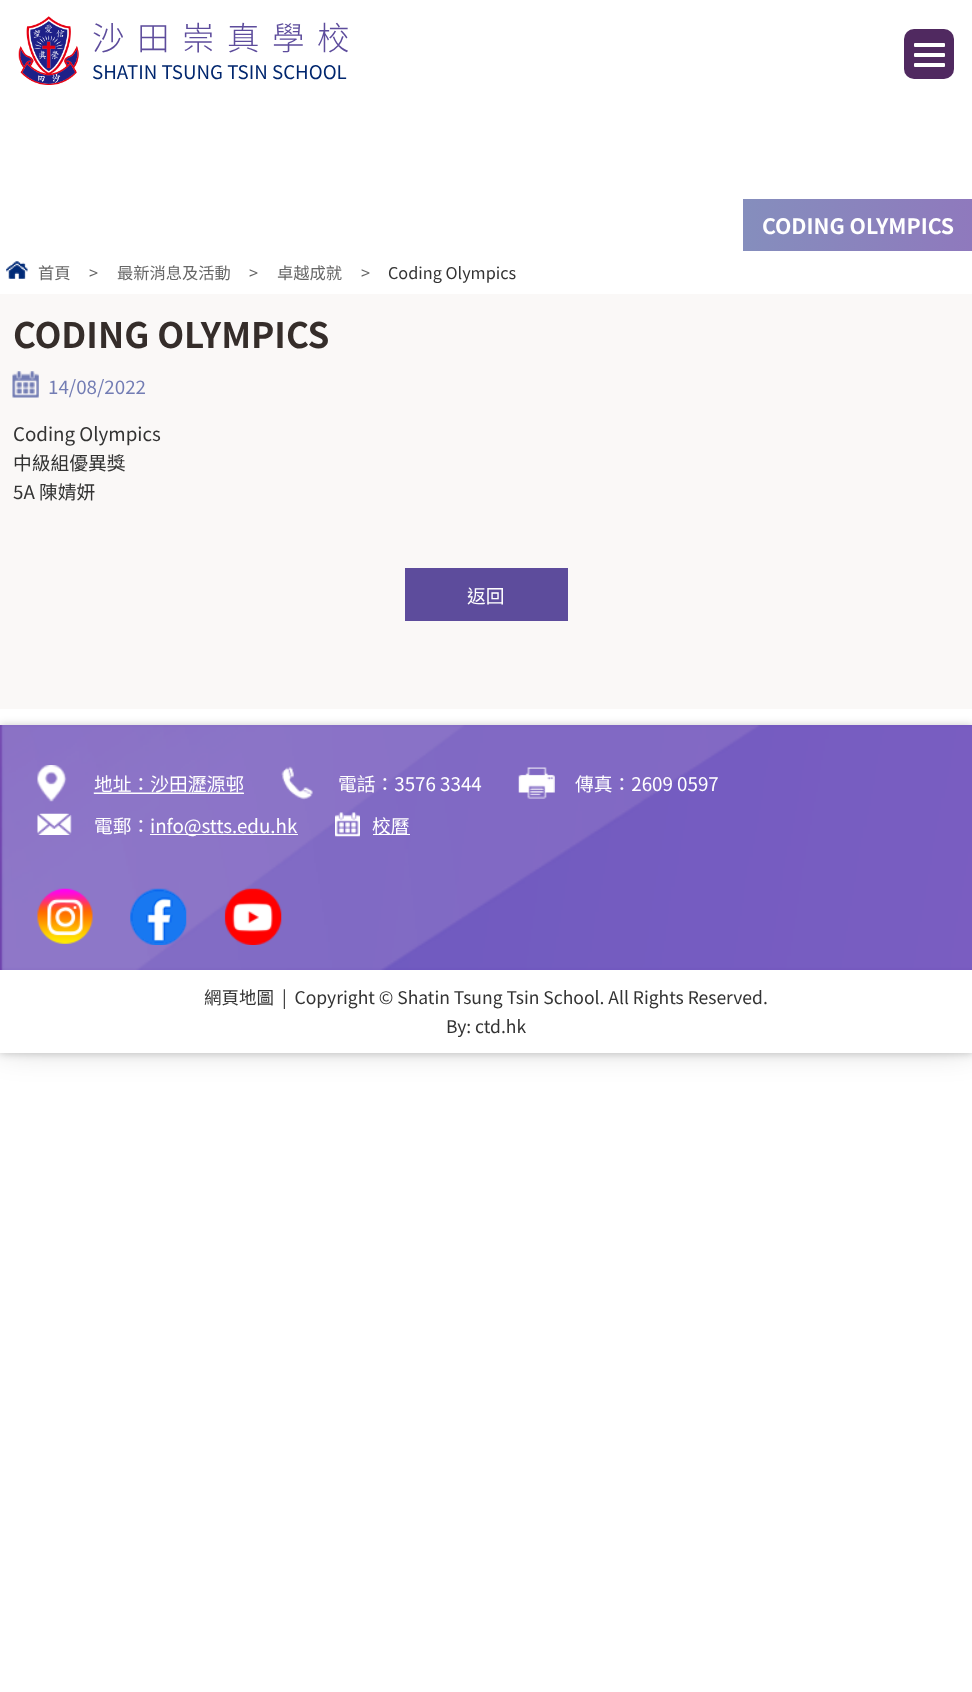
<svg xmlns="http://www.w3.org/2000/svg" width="972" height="1692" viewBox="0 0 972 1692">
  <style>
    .t1 { font: 300 32.5px Noto Sans TC; letter-spacing: 12.5px; fill: #5d4c9c; }
    .t2 { font: 18.75px Noto Sans TC; fill: #00266e; }
    .t3 { font: bold 21.25px Noto Sans TC; fill: #fff; }
    .t4 { font: 16.25px Noto Sans TC; fill: #666; }
    .t5 { font: 16.25px Noto Sans TC; fill: #333; }
    .t6 { font: bold 35px Noto Sans TC; fill: #352d2a; }
    .t7 { font: 18.75px Noto Sans TC; fill: #737db4; }
    .t8 { font: 18.75px Noto Sans TC; fill: #333; }
    .t9 { font: 18.75px Noto Sans TC; fill: #fff; }
    .t10 { font: 17.5px Noto Sans TC; fill: #333; }
  </style>
  <defs>
    <linearGradient id="g1" gradientUnits="userSpaceOnUse" x1="743" y1="225" x2="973" y2="225"><stop offset="0" stop-color="#858ebd"/><stop offset="1" stop-color="#8f79bd"/></linearGradient>
  </defs>
  <rect width="100%" height="100%" fill="#fff"/>
  <rect x="0" y="-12" width="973" height="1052" fill="#0000004d" filter="blur(19px)"/>
  <rect x="0" y="0" width="972" height="725" fill="#fff"/>
  <image x="18" y="16" width="61" height="69" href="images/1.png"/>
  <text x="92" y="50" class="t1">沙田崇真學校</text>
  <text x="92" y="79" class="t2">SHATIN TSUNG TSIN SCHOOL</text>
  <rect x="904" y="29" width="50" height="50" rx="10" fill="#502960"/>
  <rect x="914" y="43" width="31" height="4" rx="1" fill="#fff"/>
  <rect x="914" y="53" width="31" height="4" rx="1" fill="#fff"/>
  <rect x="914" y="63" width="31" height="4" rx="1" fill="#fff"/>
  <rect x="743" y="199" width="229" height="52" fill="url(#g1)"/>
  <text x="762" y="234" class="t3">CODING OLYMPICS</text>
  <rect x="0" y="294" width="972" height="415" fill="#faf8f7"/>
  <image x="6" y="261" width="22" height="18" href="images/2.png"/>
  <text x="38" y="279" class="t4">首頁</text>
  <text x="89" y="279" class="t4">&gt;</text>
  <text x="117" y="279" class="t4">最新消息及活動</text>
  <text x="249" y="279" class="t4">&gt;</text>
  <text x="277" y="279" class="t4">卓越成就</text>
  <text x="361" y="279" class="t4">&gt;</text>
  <text x="388" y="279" class="t5">Coding Olympics</text>
  <text x="13" y="348" class="t6">CODING OLYMPICS</text>
  <image x="12" y="371" width="27" height="27" href="images/3.png"/>
  <text x="48" y="394" class="t7">14/08/2022</text>
  <text x="13" y="441" class="t8">Coding Olympics</text>
  <text x="13" y="470" class="t8">中級組優異獎</text>
  <text x="13" y="499" class="t8">5A 陳婧妍</text>
  <rect x="405" y="568" width="163" height="53" fill="#5d4c9c"/>
  <text x="467" y="603" class="t9">返回</text>
  <rect x="0" y="725" width="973" height="328" fill="#00000033" filter="blur(4px)"/>
  <rect x="0" y="725" width="972" height="245" fill="#460390"/>
  <image x="0" y="725" width="972" height="245" href="images/4.png"/>
  <image x="37" y="765" width="207" height="37" href="images/5.png"/>
  <text x="94" y="791" class="t9">地址：沙田瀝源邨</text>
  <rect x="94" y="793" width="150" height="1" fill="#fff"/>
  <image x="281" y="766" width="32" height="34" href="images/6.png"/>
  <text x="338" y="791" class="t9">電話：3576 3344</text>
  <image x="518" y="767" width="37" height="32" href="images/7.png"/>
  <text x="575" y="791" class="t9">傳真：2609 0597</text>
  <image x="37" y="813" width="35" height="22" href="images/8.png"/>
  <text x="94" y="833" class="t9">電郵：</text>
  <rect x="150" y="834" width="148" height="1" fill="#fff"/>
  <text x="150" y="833" class="t9">info@stts.edu.hk</text>
  <image x="335" y="812" width="25" height="25" href="images/9.png"/>
  <rect x="373" y="834" width="37" height="1" fill="#fff"/>
  <text x="372" y="833" class="t9">校曆</text>
  <image x="37" y="888" width="56" height="56" href="images/10.png"/>
  <image x="130" y="888" width="57" height="57" href="images/11.png"/>
  <image x="224" y="888" width="58" height="57" href="images/12.png"/>
  <rect x="0" y="970" width="972" height="83" fill="#fff"/>
  <text x="204" y="1004" class="t10">網頁地圖</text>
  <text x="282" y="1004" class="t10" xml:space="preserve">|  Copyright © Shatin Tsung Tsin School. All Rights Reserved.</text>
  <text x="446" y="1033" class="t10">By: ctd.hk</text>
</svg>
